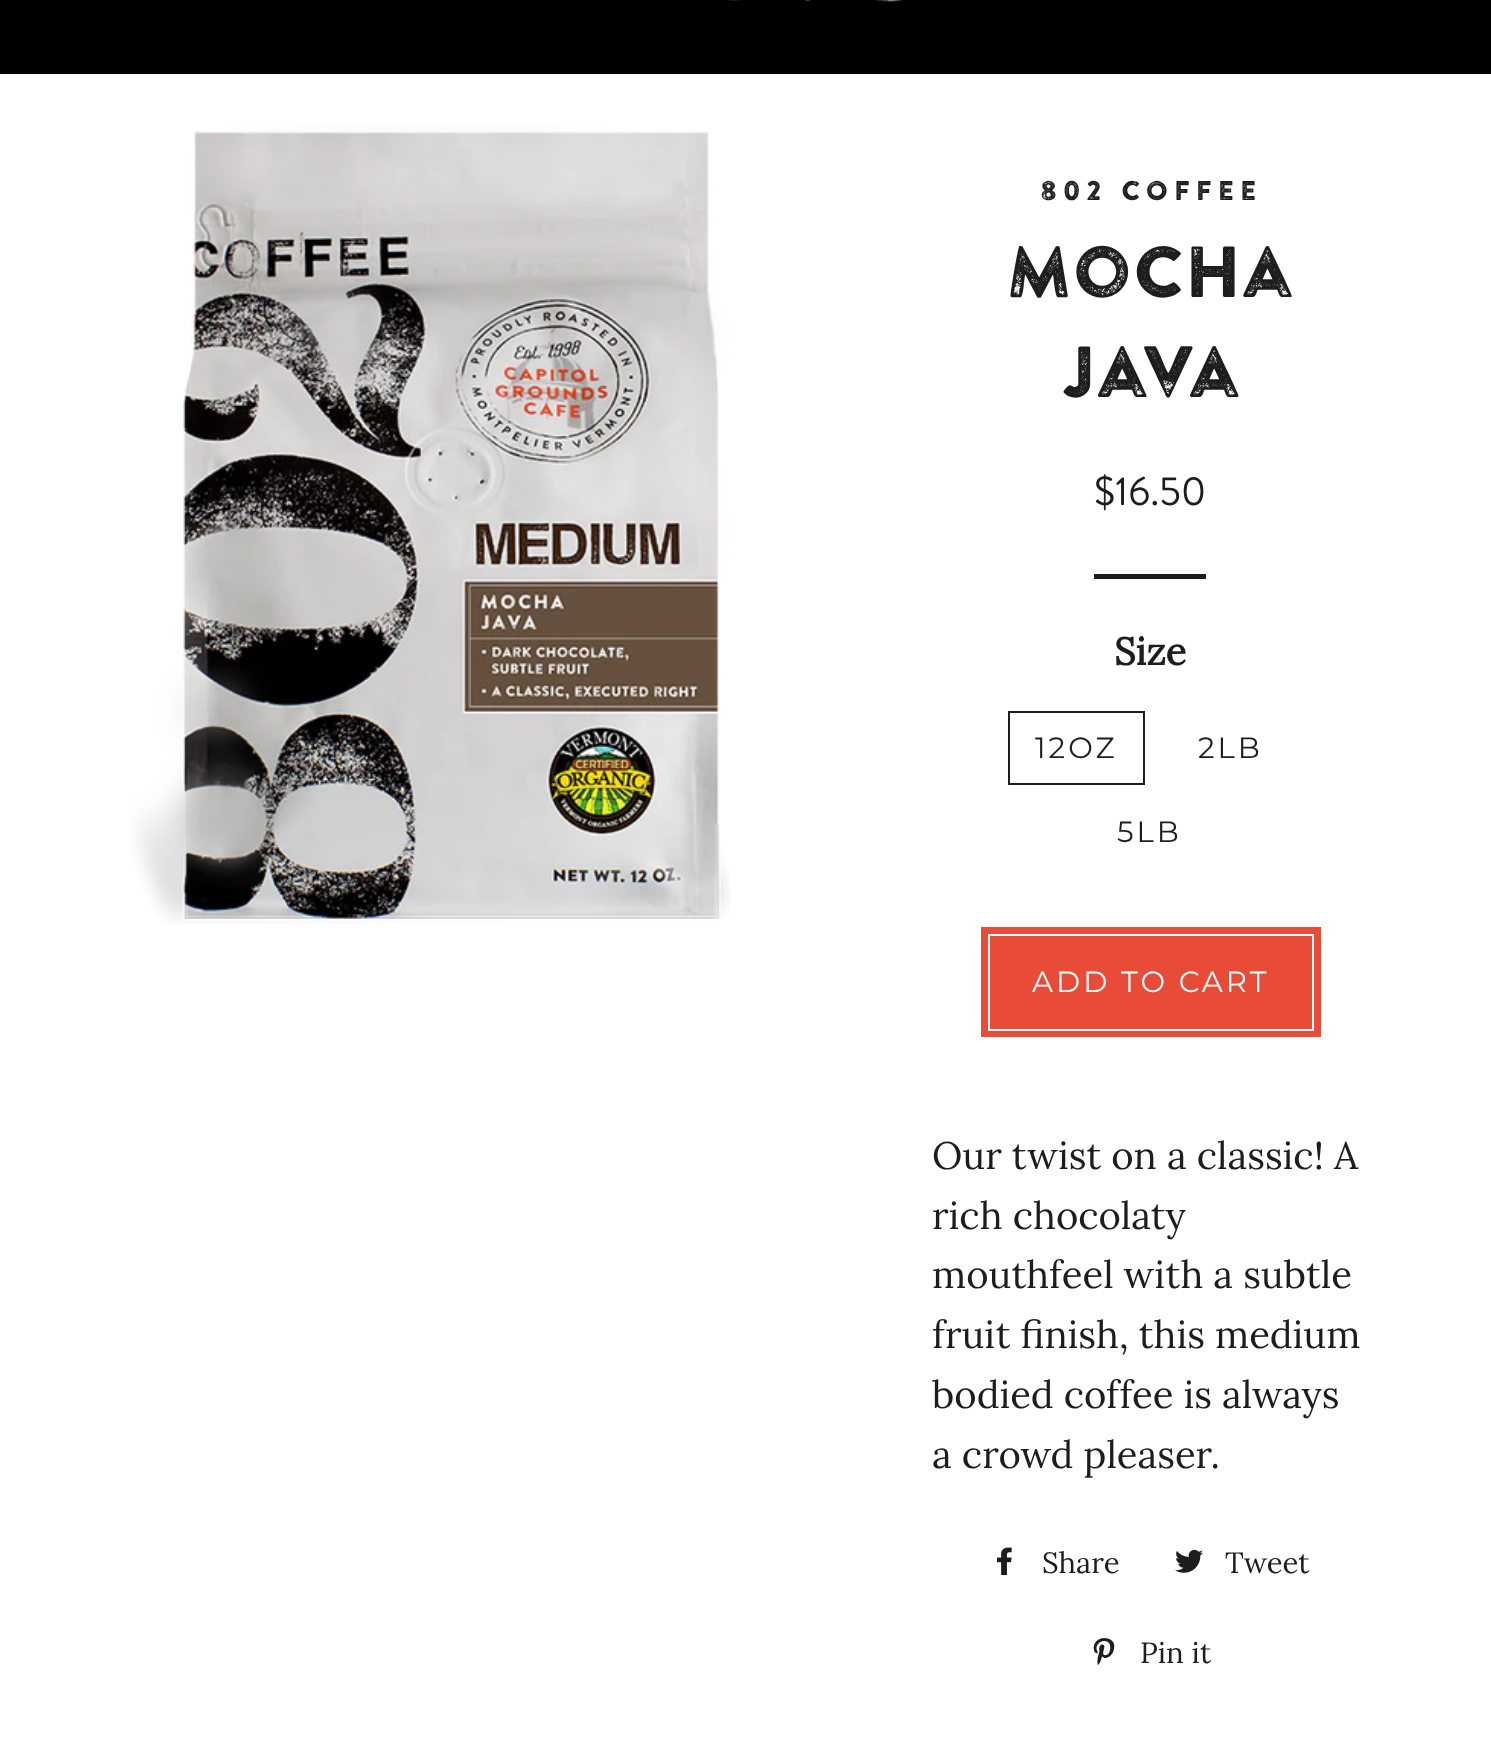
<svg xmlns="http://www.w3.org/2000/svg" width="1491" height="1740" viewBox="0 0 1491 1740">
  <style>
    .t1 { font: 27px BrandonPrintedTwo; letter-spacing: 5.5px; fill: #1c1d1d; }
    .t2 { font: 72px BrandonPrintedTwo; fill: #1c1d1d; }
    .t3 { font: 40.5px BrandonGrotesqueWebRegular; fill: #1c1d1d; }
    .t4 { font: bold 38.25px Lora; fill: #1c1d1d; }
    .t5 { font: 100 29.25px Montserrat; letter-spacing: 3px; fill: #1c1d1d; }
    .t6 { font: 100 29.25px Montserrat; letter-spacing: 3px; fill: #fff; }
    .t7 { font: 38.25px Lora; fill: #1c1d1d; }
    .t8 { font: 29.25px Lora; fill: #1c1d1d; }
  </style>
  <rect width="100%" height="100%" fill="#fff"/>
  <rect x="0" y="0" width="1491" height="74" fill="#000"/>
  <image x="727" y="0" width="176" height="2" href="images/1.png"/>
  <image x="129" y="125" width="602" height="799" href="images/2.png"/>
  <text x="1040" y="200" class="t1">802 COFFEE</text>
  <text x="1006" y="297" class="t2">Mocha</text>
  <text x="1061" y="397" class="t2">Java</text>
  <text x="1094" y="505" class="t3">$16.50</text>
  <rect x="1094" y="574" width="112" height="5" fill="#1c1d1d"/>
  <text x="1114" y="665" class="t4">Size</text>
  <rect x="1009" y="712" width="135" height="72" fill="none" stroke="#1c1d1d" stroke-width="2"/>
  <text x="1035" y="758" class="t5">12OZ</text>
  <text x="1198" y="758" class="t5">2LB</text>
  <text x="1117" y="842" class="t5">5LB</text>
  <rect x="981" y="927" width="340" height="110" fill="#e84b37"/>
  <rect x="989" y="935" width="324" height="95" fill="none" stroke="#fff" stroke-width="2"/>
  <text x="1032" y="992" class="t6">ADD TO CART</text>
  <text x="932" y="1169" class="t7">Our twist on a classic! A</text>
  <text x="932" y="1229" class="t7">rich chocolaty</text>
  <text x="932" y="1288" class="t7">mouthfeel with a subtle</text>
  <text x="932" y="1348" class="t7">fruit finish, this medium</text>
  <text x="932" y="1408" class="t7">bodied coffee is always</text>
  <text x="932" y="1468" class="t7">a crowd pleaser.</text>
  <image x="997" y="1547" width="15" height="29" href="images/3.png"/>
  <text x="1042" y="1573" class="t8">Share</text>
  <image x="1175" y="1549" width="28" height="24" href="images/4.png"/>
  <text x="1225" y="1573" class="t8">Tweet</text>
  <image x="1093" y="1638" width="22" height="27" href="images/5.png"/>
  <text x="1140" y="1663" class="t8">Pin it</text>
</svg>
